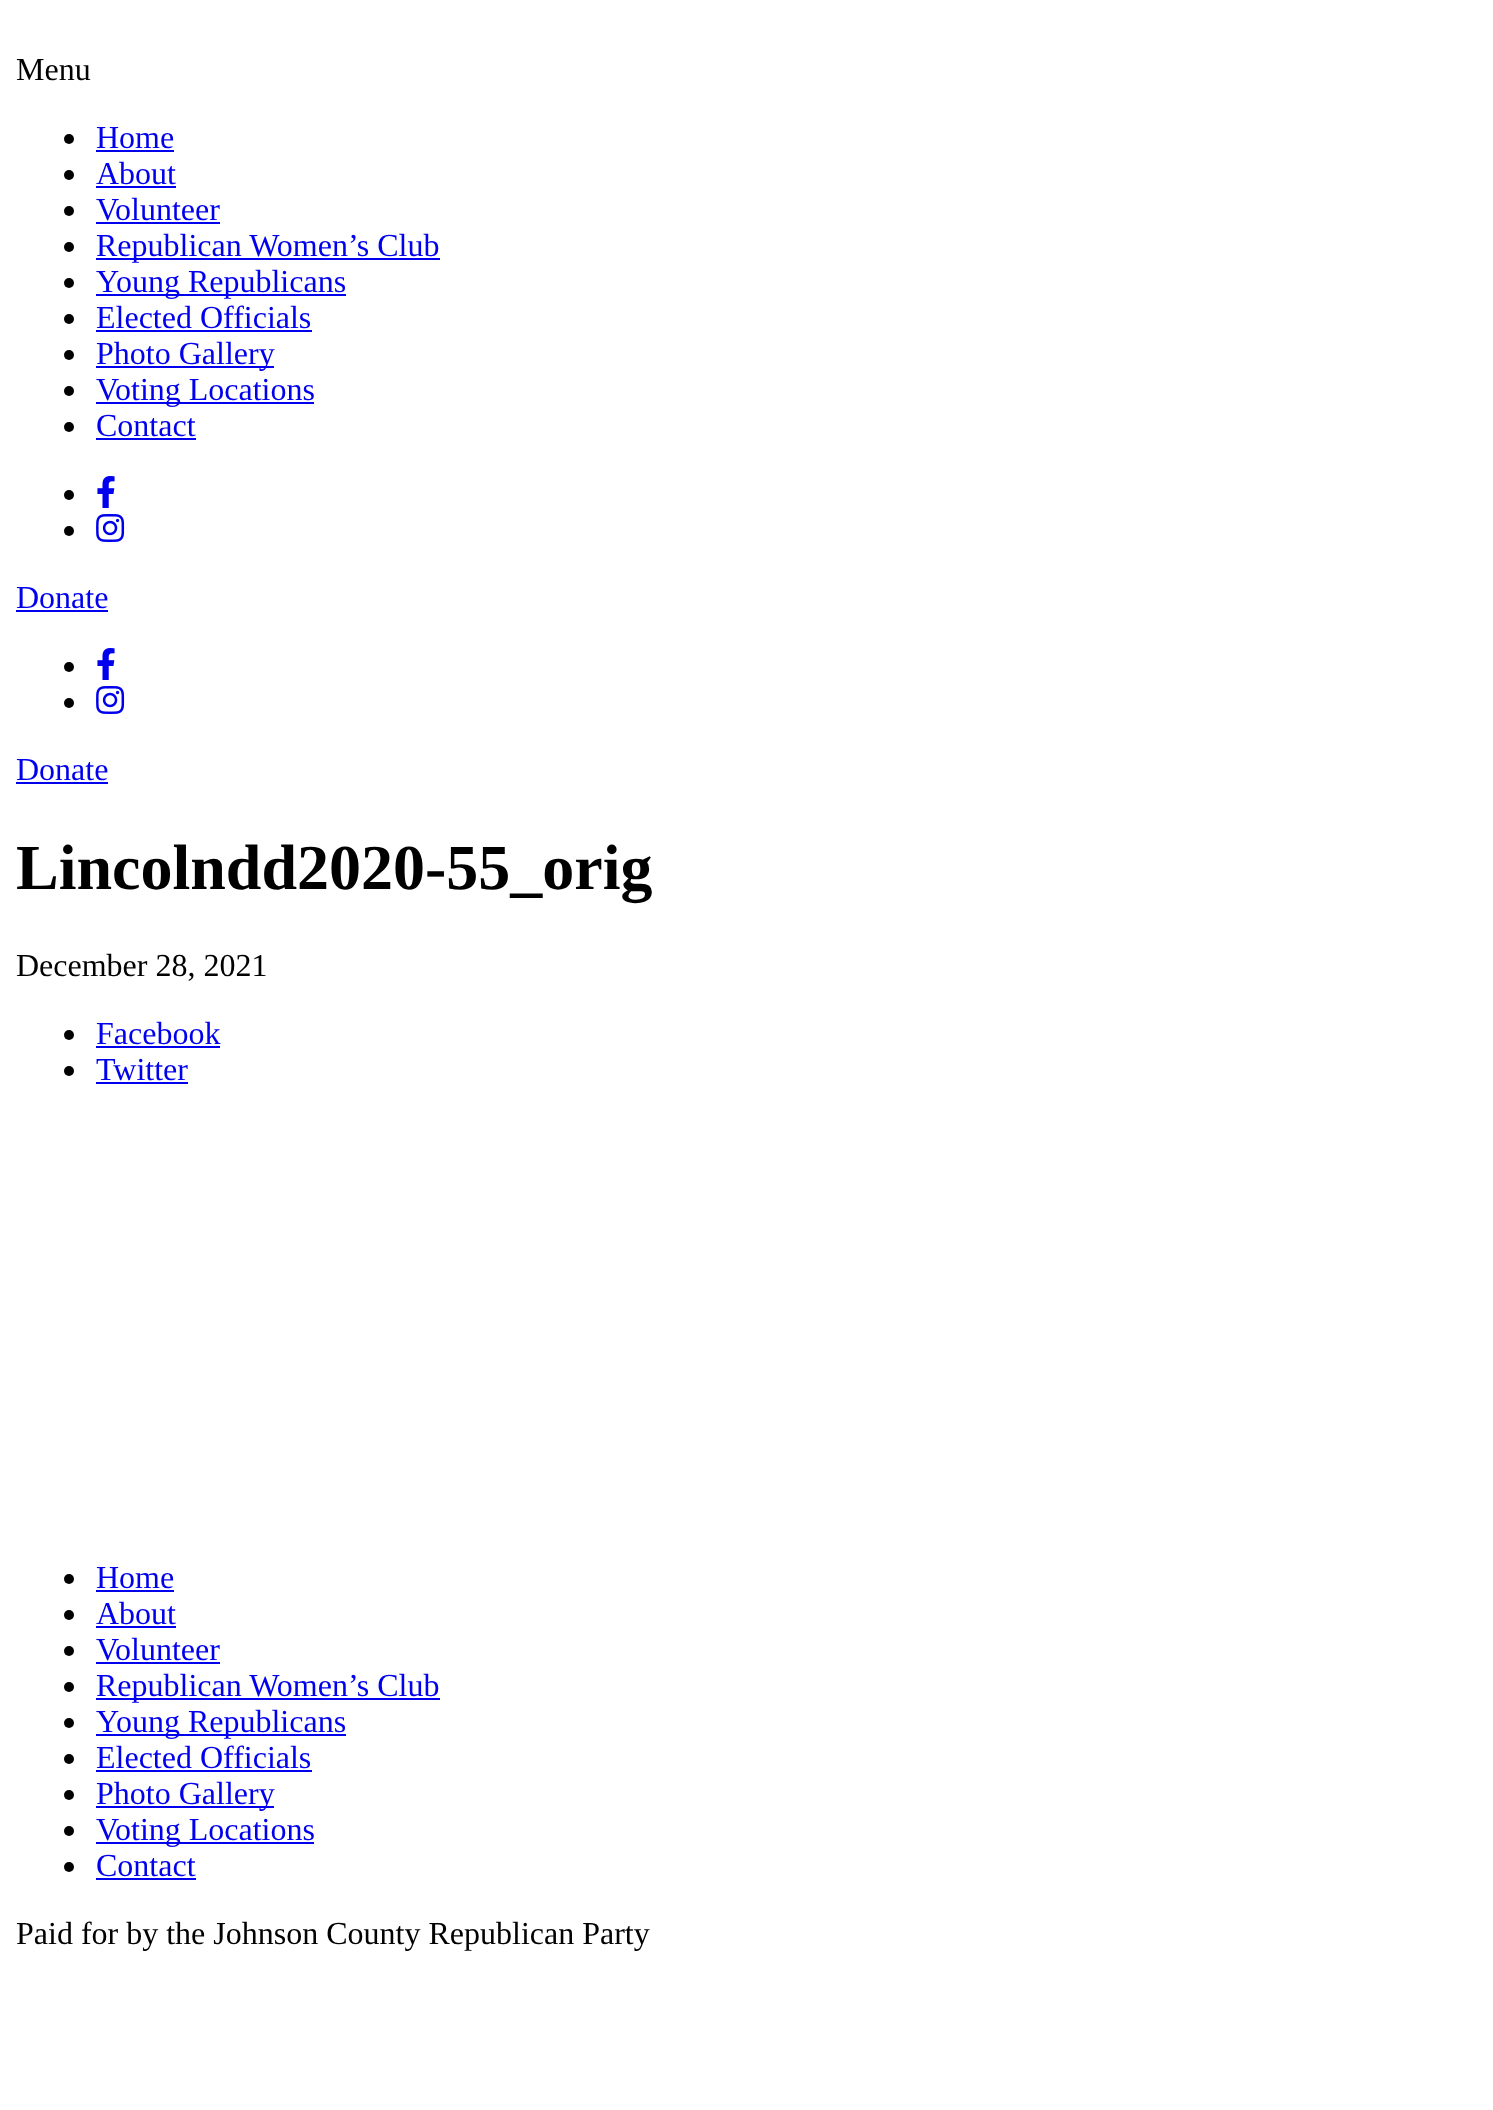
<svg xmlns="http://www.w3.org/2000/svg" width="1493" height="2110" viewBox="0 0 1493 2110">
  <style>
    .t1 { font: 32px Liberation Serif; fill: #000; }
    .t2 { font: 32px Liberation Serif; fill: #00e; }
    .t3 { font: bold 64px Liberation Serif; fill: #000; }
  </style>
  <rect width="100%" height="100%" fill="#fff"/>
  <text x="16" y="80" class="t1">Menu</text>
  <circle cx="69" cy="139" r="5" fill="#000"/>
  <text x="96" y="148" class="t2">Home</text>
  <rect x="96" y="150" width="78" height="2" fill="#00e"/>
  <circle cx="69" cy="175" r="5" fill="#000"/>
  <text x="96" y="184" class="t2">About</text>
  <rect x="96" y="186" width="80" height="2" fill="#00e"/>
  <circle cx="69" cy="211" r="5" fill="#000"/>
  <text x="96" y="220" class="t2">Volunteer</text>
  <rect x="96" y="222" width="124" height="2" fill="#00e"/>
  <circle cx="69" cy="247" r="5" fill="#000"/>
  <rect x="96" y="258" width="344" height="2" fill="#00e"/>
  <text x="96" y="256" class="t2">Republican Women’s Club</text>
  <circle cx="69" cy="283" r="5" fill="#000"/>
  <rect x="96" y="294" width="250" height="2" fill="#00e"/>
  <text x="96" y="292" class="t2">Young Republicans</text>
  <circle cx="69" cy="319" r="5" fill="#000"/>
  <text x="96" y="328" class="t2">Elected Officials</text>
  <rect x="96" y="330" width="216" height="2" fill="#00e"/>
  <circle cx="69" cy="355" r="5" fill="#000"/>
  <rect x="96" y="366" width="178" height="2" fill="#00e"/>
  <text x="96" y="364" class="t2">Photo Gallery</text>
  <circle cx="69" cy="391" r="5" fill="#000"/>
  <rect x="96" y="402" width="218" height="2" fill="#00e"/>
  <text x="96" y="400" class="t2">Voting Locations</text>
  <circle cx="69" cy="427" r="5" fill="#000"/>
  <text x="96" y="436" class="t2">Contact</text>
  <rect x="96" y="438" width="100" height="2" fill="#00e"/>
  <circle cx="69" cy="495" r="5" fill="#000"/>
  <image x="97" y="476" width="18" height="32" href="images/1.png"/>
  <circle cx="69" cy="531" r="5" fill="#000"/>
  <image x="96" y="514" width="29" height="28" href="images/2.png"/>
  <text x="16" y="608" class="t2">Donate</text>
  <rect x="16" y="610" width="92" height="2" fill="#00e"/>
  <circle cx="69" cy="667" r="5" fill="#000"/>
  <image x="97" y="648" width="18" height="32" href="images/1.png"/>
  <circle cx="69" cy="703" r="5" fill="#000"/>
  <image x="96" y="686" width="29" height="28" href="images/2.png"/>
  <text x="16" y="780" class="t2">Donate</text>
  <rect x="16" y="782" width="92" height="2" fill="#00e"/>
  <text x="16" y="889" class="t3">Lincolndd2020-55_orig</text>
  <text x="16" y="976" class="t1">December 28, 2021</text>
  <circle cx="69" cy="1035" r="5" fill="#000"/>
  <text x="96" y="1044" class="t2">Facebook</text>
  <rect x="96" y="1046" width="124" height="2" fill="#00e"/>
  <circle cx="69" cy="1071" r="5" fill="#000"/>
  <text x="96" y="1080" class="t2">Twitter</text>
  <rect x="96" y="1082" width="92" height="2" fill="#00e"/>
  <circle cx="69" cy="1579" r="5" fill="#000"/>
  <text x="96" y="1588" class="t2">Home</text>
  <rect x="96" y="1590" width="78" height="2" fill="#00e"/>
  <circle cx="69" cy="1615" r="5" fill="#000"/>
  <text x="96" y="1624" class="t2">About</text>
  <rect x="96" y="1626" width="80" height="2" fill="#00e"/>
  <circle cx="69" cy="1651" r="5" fill="#000"/>
  <text x="96" y="1660" class="t2">Volunteer</text>
  <rect x="96" y="1662" width="124" height="2" fill="#00e"/>
  <circle cx="69" cy="1687" r="5" fill="#000"/>
  <rect x="96" y="1698" width="344" height="2" fill="#00e"/>
  <text x="96" y="1696" class="t2">Republican Women’s Club</text>
  <circle cx="69" cy="1723" r="5" fill="#000"/>
  <rect x="96" y="1734" width="250" height="2" fill="#00e"/>
  <text x="96" y="1732" class="t2">Young Republicans</text>
  <circle cx="69" cy="1759" r="5" fill="#000"/>
  <text x="96" y="1768" class="t2">Elected Officials</text>
  <rect x="96" y="1770" width="216" height="2" fill="#00e"/>
  <circle cx="69" cy="1795" r="5" fill="#000"/>
  <rect x="96" y="1806" width="178" height="2" fill="#00e"/>
  <text x="96" y="1804" class="t2">Photo Gallery</text>
  <circle cx="69" cy="1831" r="5" fill="#000"/>
  <rect x="96" y="1842" width="218" height="2" fill="#00e"/>
  <text x="96" y="1840" class="t2">Voting Locations</text>
  <circle cx="69" cy="1867" r="5" fill="#000"/>
  <text x="96" y="1876" class="t2">Contact</text>
  <rect x="96" y="1878" width="100" height="2" fill="#00e"/>
  <text x="16" y="1944" class="t1">Paid for by the Johnson County Republican Party</text>
</svg>
